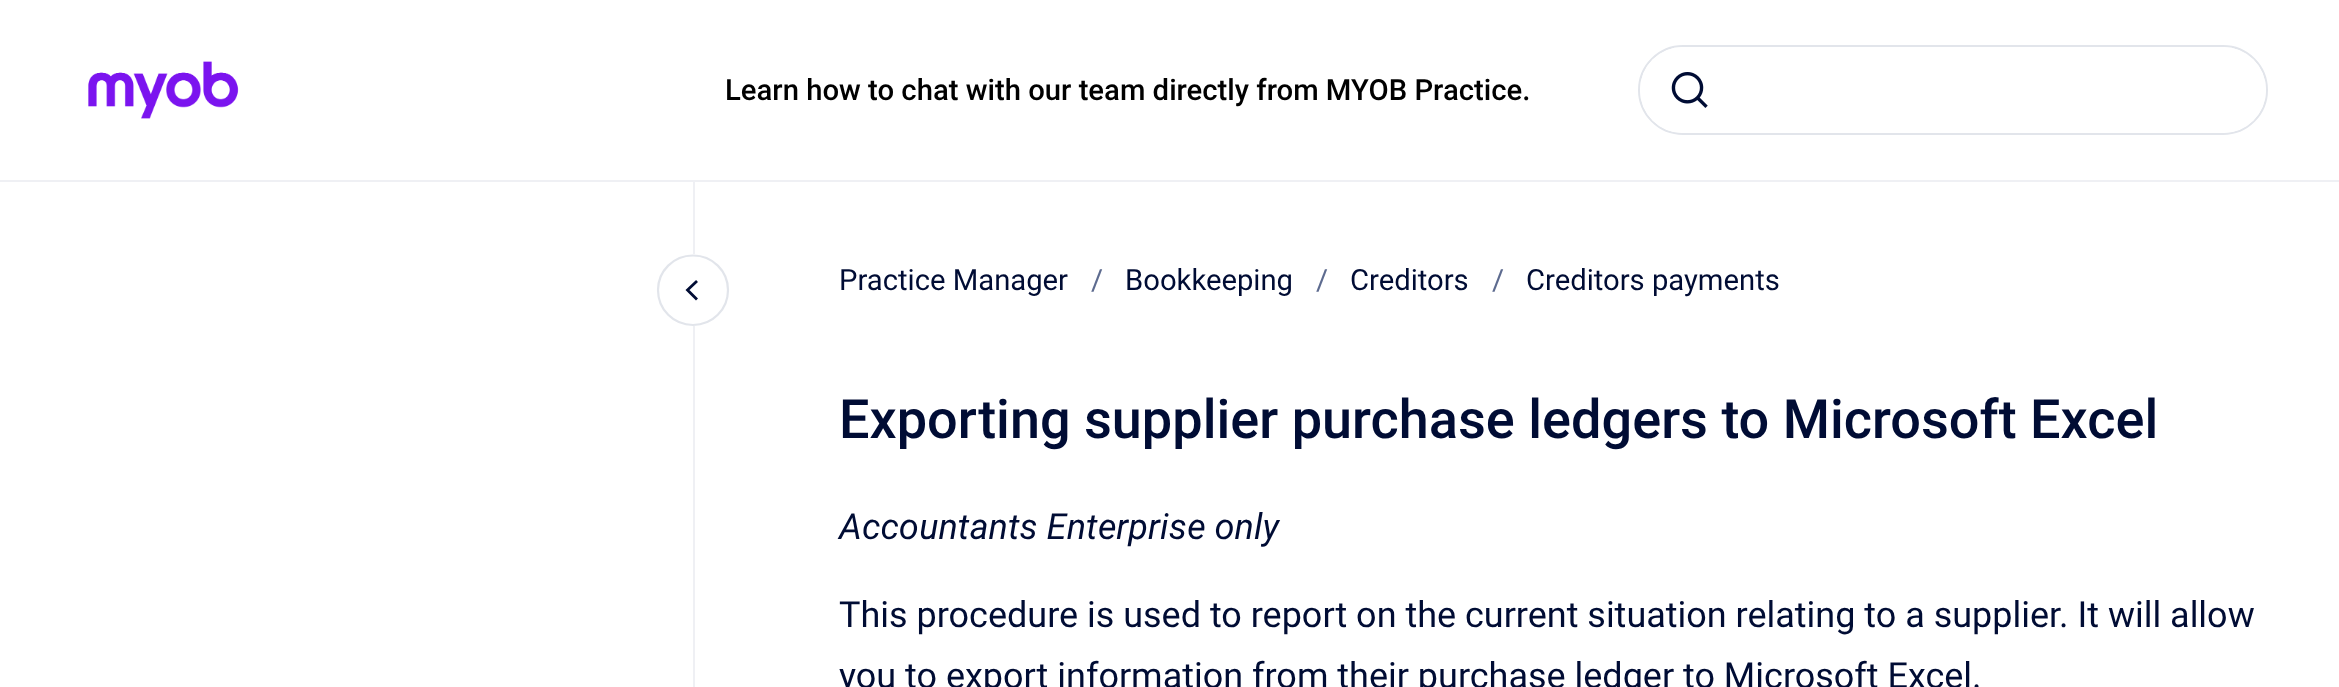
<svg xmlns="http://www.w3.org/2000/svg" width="2339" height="687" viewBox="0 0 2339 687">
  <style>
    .t1 { font: 500 29.25px Roboto; fill: #000; }
    .t2 { font: 29.25px Roboto; fill: #000c34; }
    .t3 { font: 29.25px Roboto; fill: #5d6b8f; }
    .t4 { font: 500 54px Roboto; fill: #000c34; }
    .t5 { font: italic 36px Roboto; fill: #000c34; }
    .t6 { font: 36px Roboto; fill: #000c34; }
  </style>
  <rect width="100%" height="100%" fill="#fff"/>
  <rect x="0" y="180" width="2339" height="2" fill="#eff0f4"/>
  <image x="88" y="61" width="151" height="58" href="images/1.png"/>
  <text x="725" y="100" class="t1">Learn how to chat with our team directly from MYOB Practice.</text>
  <rect x="1639" y="46" width="628" height="88" rx="44" fill="none" stroke="#e2e5eb" stroke-width="2"/>
  <rect x="1640" y="47" width="626" height="86" rx="43" fill="#fff"/>
  <image x="1671" y="72" width="37" height="36" href="images/2.png"/>
  <rect x="693" y="182" width="2" height="505" fill="#eff0f4"/>
  <path d="M693 326C673 326 657 310 657 290C657 270 673 254 693 254C713 254 729 270 729 290C729 310 713 326 693 326Z" fill="#fff"/>
  <path d="M693 325C673.5 325 658 309.5 658 290C658 271 673.5 255.5 693 255.5C712.5 255.5 728 271 728 290C728 309.5 712.5 325 693 325Z" fill="none" stroke="#e2e5eb" stroke-width="2.2"/>
  <path d="M696 298.5L687.5 290L696 282" fill="none" stroke="#000c34" stroke-width="2.8" stroke-linecap="square"/>
  <text x="839" y="290" class="t2">Practice Manager</text>
  <text x="1091" y="290" class="t3">/</text>
  <text x="1125" y="290" class="t2">Bookkeeping</text>
  <text x="1316" y="290" class="t3">/</text>
  <text x="1350" y="290" class="t2">Creditors</text>
  <text x="1492" y="290" class="t3">/</text>
  <text x="1526" y="290" class="t2">Creditors payments</text>
  <text x="839" y="438" class="t4">Exporting supplier purchase ledgers to Microsoft Excel</text>
  <text x="839" y="539" class="t5">Accountants Enterprise only</text>
  <text x="839" y="627" class="t6">This procedure is used to report on the current situation relating to a supplier. It will allow</text>
  <text x="839" y="688" class="t6">you to export information from their purchase ledger to Microsoft Excel.</text>
</svg>
